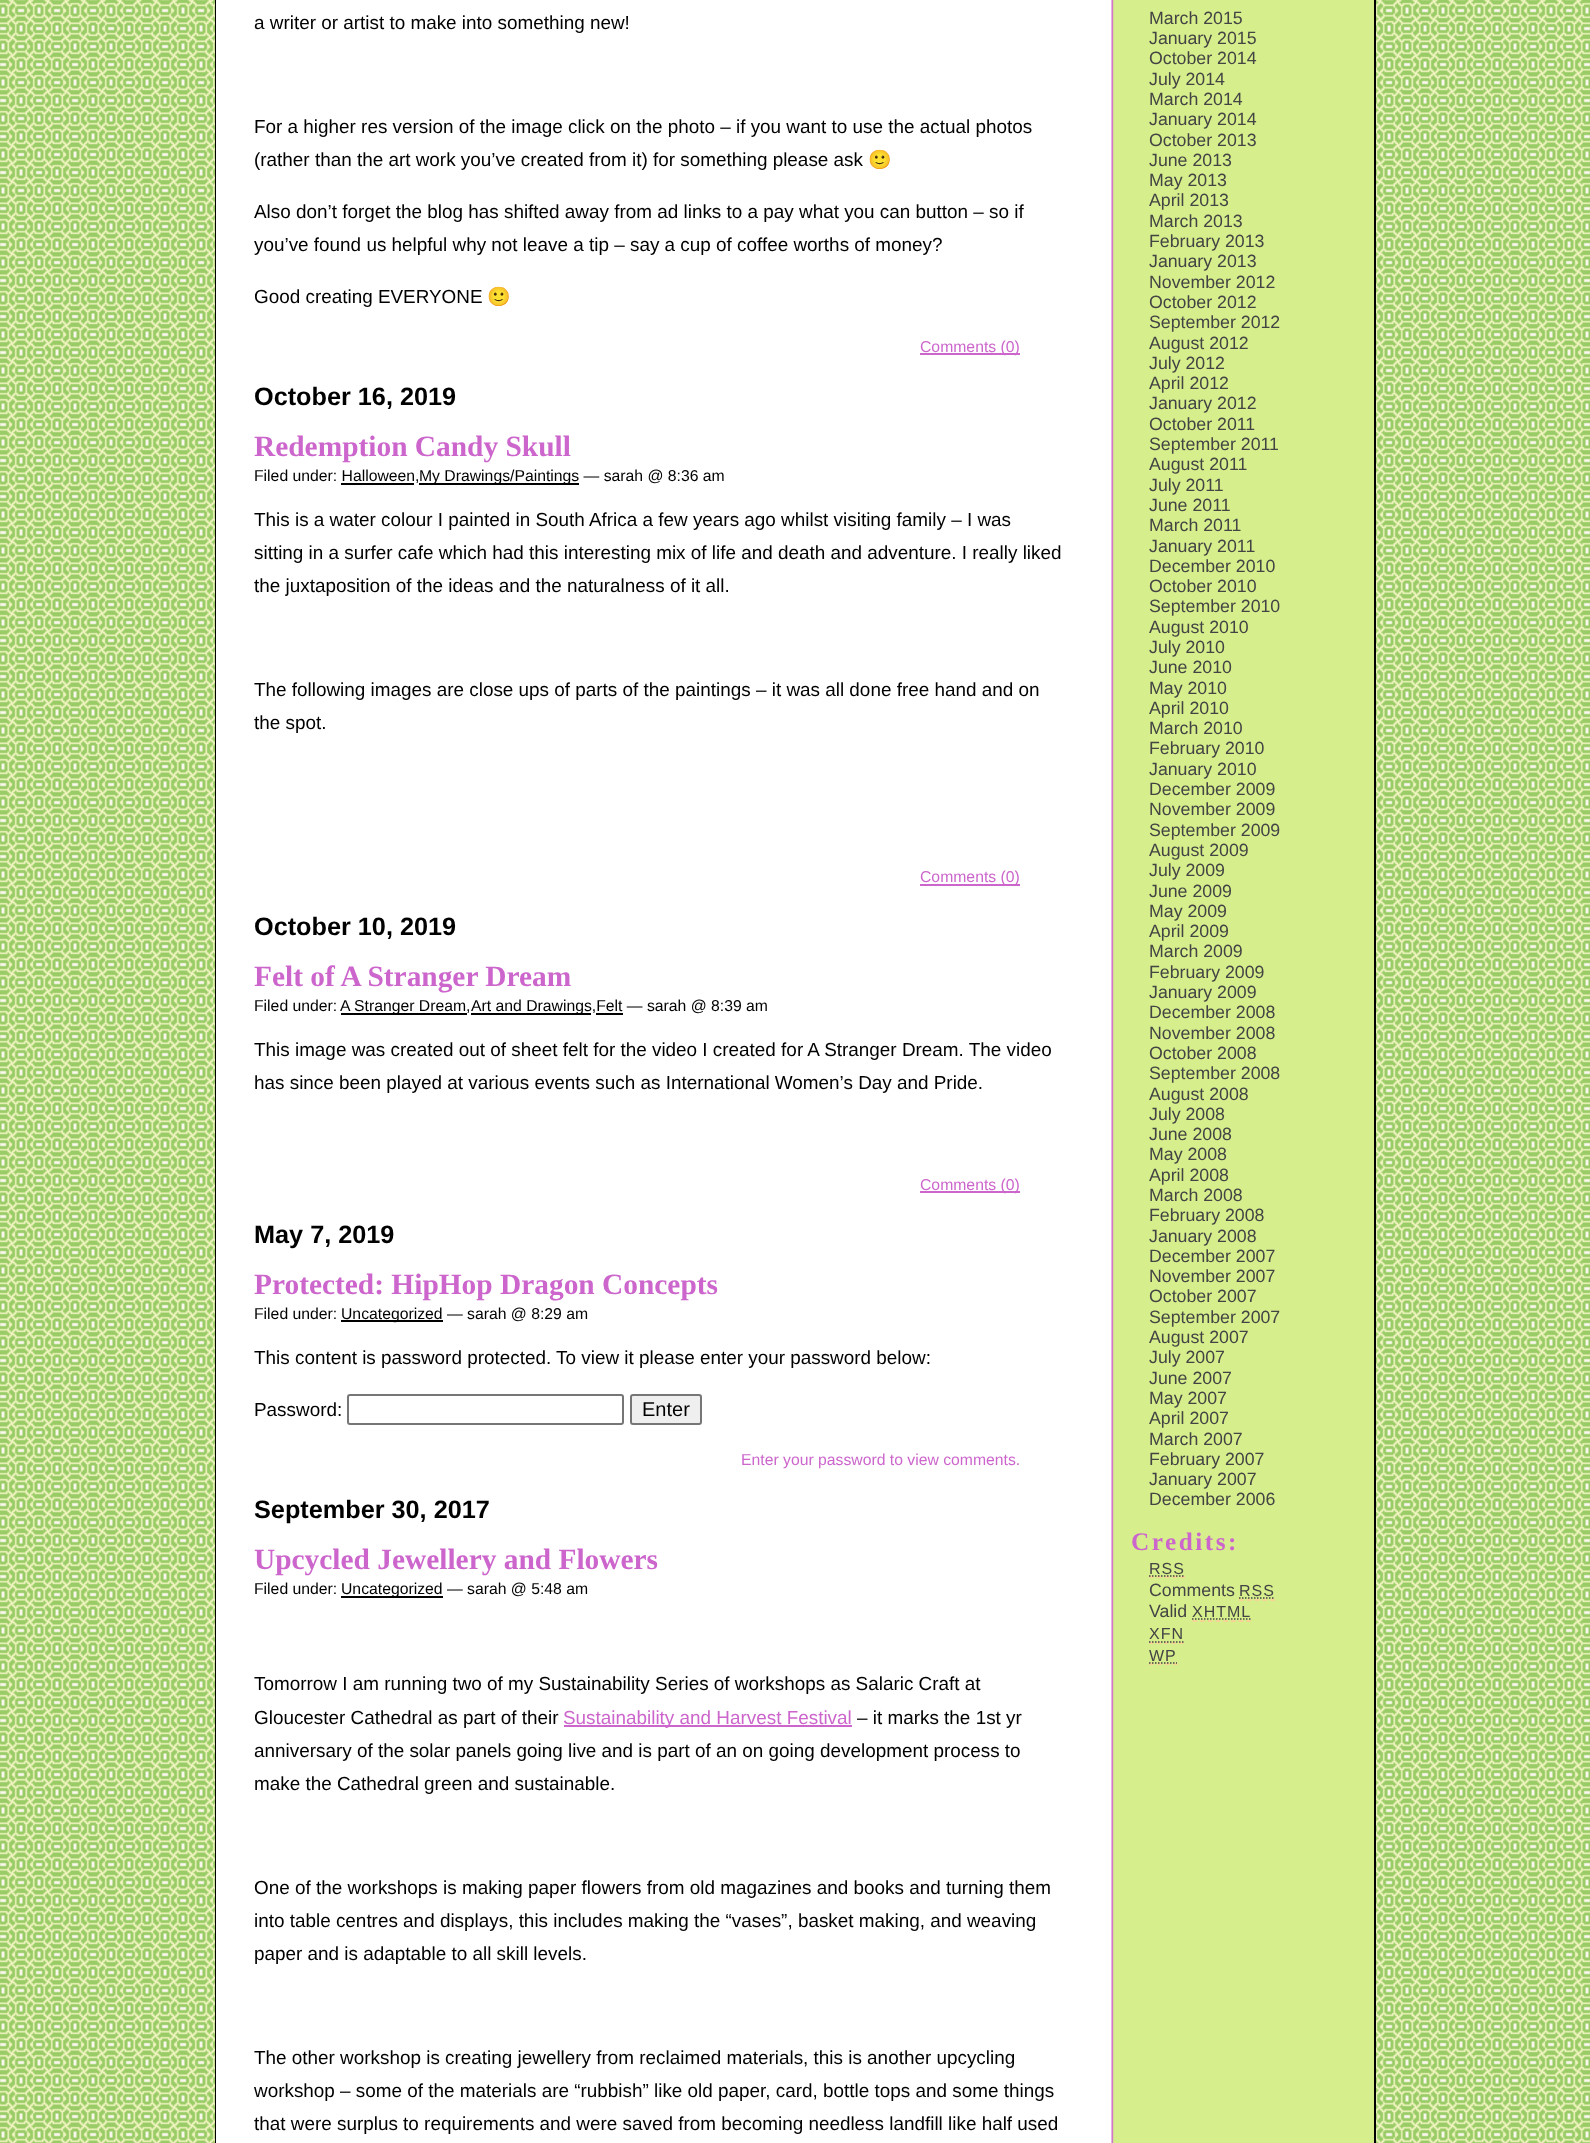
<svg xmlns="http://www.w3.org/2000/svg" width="1590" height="2143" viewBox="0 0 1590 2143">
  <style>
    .t1 { font: 18.9px Liberation Sans; fill: #000; }
    .t2 { font: 18.9px Noto Color Emoji; fill: #000; }
    .t3 { font: 15.75px Liberation Sans; fill: #c6c; }
    .t4 { font: bold 25.25px Liberation Sans; fill: #000; }
    .t5 { font: bold 29.4px Liberation Serif; fill: #c6c; }
    .t6 { font: 15.75px Liberation Sans; fill: #000; }
    .t7 { font: 20px Liberation Sans; fill: #000; }
    .t8 { font: 18.9px Liberation Sans; fill: #c6c; }
    .t9 { font: 17.75px Liberation Sans; fill: #444; }
    .t10 { font: bold 25.25px Liberation Serif; letter-spacing: 2.5px; fill: #c6c; }
    .t11 { font: 16px Liberation Sans; letter-spacing: 1px; fill: #444; }
  </style>
  <rect width="100%" height="100%" fill="#fff"/>
  <image x="0" y="0" width="1590" height="2143" href="images/1.png"/>
  <rect x="216" y="0" width="896" height="2143" fill="#fff"/>
  <image x="1111" y="0" width="263" height="2143" href="images/2.png"/>
  <rect x="1374" y="0" width="2" height="2143" fill="#000"/>
  <rect x="215" y="0" width="1" height="2143" fill="#000"/>
  <text x="254" y="29" class="t1">a writer or artist to make into something new!</text>
  <text x="254" y="133" class="t1">For a higher res version of the image click on the photo – if you want to use the actual photos</text>
  <text x="254" y="166" class="t1">(rather than the art work you’ve created from it) for something please ask</text>
  <text x="868" y="166" class="t2">🙂</text>
  <text x="254" y="218" class="t1">Also don’t forget the blog has shifted away from ad links to a pay what you can button – so if</text>
  <text x="254" y="251" class="t1">you’ve found us helpful why not leave a tip – say a cup of coffee worths of money?</text>
  <text x="254" y="303" class="t1">Good creating EVERYONE</text>
  <text x="487" y="303" class="t2">🙂</text>
  <rect x="920" y="353" width="100" height="2" fill="#c6c"/>
  <text x="920" y="352" class="t3">Comments (0)</text>
  <text x="254" y="405" class="t4">October 16, 2019</text>
  <text x="254" y="456" class="t5">Redemption Candy Skull</text>
  <text x="254" y="481" class="t6">Filed under: Halloween,</text>
  <rect x="419" y="483" width="160" height="2" fill="#000"/>
  <text x="419" y="481" class="t6">My Drawings/Paintings — sarah @ 8:36 am</text>
  <rect x="341" y="483" width="73" height="2" fill="#000"/>
  <text x="254" y="526" class="t1">This is a water colour I painted in South Africa a few years ago whilst visiting family – I was</text>
  <text x="254" y="559" class="t1">sitting in a surfer cafe which had this interesting mix of life and death and adventure. I really liked</text>
  <text x="254" y="592" class="t1">the juxtaposition of the ideas and the naturalness of it all.</text>
  <text x="254" y="696" class="t1">The following images are close ups of parts of the paintings – it was all done free hand and on</text>
  <text x="254" y="729" class="t1">the spot.</text>
  <rect x="920" y="884" width="100" height="2" fill="#c6c"/>
  <text x="920" y="882" class="t3">Comments (0)</text>
  <text x="254" y="935" class="t4">October 10, 2019</text>
  <text x="254" y="986" class="t5">Felt of A Stranger Dream</text>
  <text x="254" y="1011" class="t6">Filed under:</text>
  <rect x="341" y="1013" width="126" height="2" fill="#000"/>
  <text x="340" y="1011" class="t6">A Stranger Dream,</text>
  <rect x="471" y="1013" width="120" height="2" fill="#000"/>
  <text x="471" y="1011" class="t6">Art and Drawings,Felt — sarah @ 8:39 am</text>
  <rect x="596" y="1013" width="27" height="2" fill="#000"/>
  <text x="254" y="1056" class="t1">This image was created out of sheet felt for the video I created for A Stranger Dream. The video</text>
  <text x="254" y="1089" class="t1">has since been played at various events such as International Women’s Day and Pride.</text>
  <rect x="920" y="1191" width="100" height="2" fill="#c6c"/>
  <text x="920" y="1190" class="t3">Comments (0)</text>
  <text x="254" y="1243" class="t4">May 7, 2019</text>
  <text x="254" y="1294" class="t5">Protected: HipHop Dragon Concepts</text>
  <text x="254" y="1319" class="t6">Filed under:</text>
  <rect x="341" y="1320" width="102" height="2" fill="#000"/>
  <text x="341" y="1319" class="t6">Uncategorized — sarah @ 8:29 am</text>
  <text x="254" y="1364" class="t1">This content is password protected. To view it please enter your password below:</text>
  <text x="254" y="1416" class="t1">Password:</text>
  <rect x="348" y="1395" width="275" height="29" rx="2" fill="none" stroke="#767676" stroke-width="2"/>
  <rect x="631" y="1395" width="70" height="29" rx="2" fill="#efefef" stroke="#767676" stroke-width="2"/>
  <text x="642" y="1416" class="t7">Enter</text>
  <text x="741" y="1465" class="t3">Enter your password to view comments.</text>
  <text x="254" y="1518" class="t4">September 30, 2017</text>
  <text x="254" y="1569" class="t5">Upcycled Jewellery and Flowers</text>
  <text x="254" y="1594" class="t6">Filed under:</text>
  <rect x="341" y="1596" width="102" height="2" fill="#000"/>
  <text x="341" y="1594" class="t6">Uncategorized — sarah @ 5:48 am</text>
  <text x="254" y="1690" class="t1">Tomorrow I am running two of my Sustainability Series of workshops as Salaric Craft at</text>
  <text x="254" y="1724" class="t1">Gloucester Cathedral as part of their</text>
  <rect x="564" y="1725" width="288" height="2" fill="#c6c"/>
  <text x="563" y="1724" class="t8">Sustainability and Harvest Festival</text>
  <text x="857" y="1724" class="t1">– it marks the 1st yr</text>
  <text x="254" y="1757" class="t1">anniversary of the solar panels going live and is part of an on going development process to</text>
  <text x="254" y="1790" class="t1">make the Cathedral green and sustainable.</text>
  <text x="254" y="1894" class="t1">One of the workshops is making paper flowers from old magazines and books and turning them</text>
  <text x="254" y="1927" class="t1">into table centres and displays, this includes making the “vases”, basket making, and weaving</text>
  <text x="254" y="1960" class="t1">paper and is adaptable to all skill levels.</text>
  <text x="254" y="2064" class="t1">The other workshop is creating jewellery from reclaimed materials, this is another upcycling</text>
  <text x="254" y="2097" class="t1">workshop – some of the materials are “rubbish” like old paper, card, bottle tops and some things</text>
  <text x="254" y="2130" class="t1">that were surplus to requirements and were saved from becoming needless landfill like half used</text>
  <text x="1149" y="24" class="t9">March 2015</text>
  <text x="1149" y="44" class="t9">January 2015</text>
  <text x="1149" y="64" class="t9">October 2014</text>
  <text x="1149" y="85" class="t9">July 2014</text>
  <text x="1149" y="105" class="t9">March 2014</text>
  <text x="1149" y="125" class="t9">January 2014</text>
  <text x="1149" y="146" class="t9">October 2013</text>
  <text x="1149" y="166" class="t9">June 2013</text>
  <text x="1149" y="186" class="t9">May 2013</text>
  <text x="1149" y="206" class="t9">April 2013</text>
  <text x="1149" y="227" class="t9">March 2013</text>
  <text x="1149" y="247" class="t9">February 2013</text>
  <text x="1149" y="267" class="t9">January 2013</text>
  <text x="1149" y="288" class="t9">November 2012</text>
  <text x="1149" y="308" class="t9">October 2012</text>
  <text x="1149" y="328" class="t9">September 2012</text>
  <text x="1149" y="349" class="t9">August 2012</text>
  <text x="1149" y="369" class="t9">July 2012</text>
  <text x="1149" y="389" class="t9">April 2012</text>
  <text x="1149" y="409" class="t9">January 2012</text>
  <text x="1149" y="430" class="t9">October 2011</text>
  <text x="1149" y="450" class="t9">September 2011</text>
  <text x="1149" y="470" class="t9">August 2011</text>
  <text x="1149" y="491" class="t9">July 2011</text>
  <text x="1149" y="511" class="t9">June 2011</text>
  <text x="1149" y="531" class="t9">March 2011</text>
  <text x="1149" y="552" class="t9">January 2011</text>
  <text x="1149" y="572" class="t9">December 2010</text>
  <text x="1149" y="592" class="t9">October 2010</text>
  <text x="1149" y="612" class="t9">September 2010</text>
  <text x="1149" y="633" class="t9">August 2010</text>
  <text x="1149" y="653" class="t9">July 2010</text>
  <text x="1149" y="673" class="t9">June 2010</text>
  <text x="1149" y="694" class="t9">May 2010</text>
  <text x="1149" y="714" class="t9">April 2010</text>
  <text x="1149" y="734" class="t9">March 2010</text>
  <text x="1149" y="754" class="t9">February 2010</text>
  <text x="1149" y="775" class="t9">January 2010</text>
  <text x="1149" y="795" class="t9">December 2009</text>
  <text x="1149" y="815" class="t9">November 2009</text>
  <text x="1149" y="836" class="t9">September 2009</text>
  <text x="1149" y="856" class="t9">August 2009</text>
  <text x="1149" y="876" class="t9">July 2009</text>
  <text x="1149" y="897" class="t9">June 2009</text>
  <text x="1149" y="917" class="t9">May 2009</text>
  <text x="1149" y="937" class="t9">April 2009</text>
  <text x="1149" y="957" class="t9">March 2009</text>
  <text x="1149" y="978" class="t9">February 2009</text>
  <text x="1149" y="998" class="t9">January 2009</text>
  <text x="1149" y="1018" class="t9">December 2008</text>
  <text x="1149" y="1039" class="t9">November 2008</text>
  <text x="1149" y="1059" class="t9">October 2008</text>
  <text x="1149" y="1079" class="t9">September 2008</text>
  <text x="1149" y="1100" class="t9">August 2008</text>
  <text x="1149" y="1120" class="t9">July 2008</text>
  <text x="1149" y="1140" class="t9">June 2008</text>
  <text x="1149" y="1160" class="t9">May 2008</text>
  <text x="1149" y="1181" class="t9">April 2008</text>
  <text x="1149" y="1201" class="t9">March 2008</text>
  <text x="1149" y="1221" class="t9">February 2008</text>
  <text x="1149" y="1242" class="t9">January 2008</text>
  <text x="1149" y="1262" class="t9">December 2007</text>
  <text x="1149" y="1282" class="t9">November 2007</text>
  <text x="1149" y="1302" class="t9">October 2007</text>
  <text x="1149" y="1323" class="t9">September 2007</text>
  <text x="1149" y="1343" class="t9">August 2007</text>
  <text x="1149" y="1363" class="t9">July 2007</text>
  <text x="1149" y="1384" class="t9">June 2007</text>
  <text x="1149" y="1404" class="t9">May 2007</text>
  <text x="1149" y="1424" class="t9">April 2007</text>
  <text x="1149" y="1445" class="t9">March 2007</text>
  <text x="1149" y="1465" class="t9">February 2007</text>
  <text x="1149" y="1485" class="t9">January 2007</text>
  <text x="1149" y="1505" class="t9">December 2006</text>
  <text x="1131" y="1550" class="t10">Credits:</text>
  <text x="1149" y="1574" class="t11">RSS</text>
  <path d="M1149 1577H1185" fill="none" stroke="#fc9" stroke-width="1.5" stroke-dasharray="4.5 3.38"/>
  <path d="M1149 1576H1185" fill="none" stroke="#444" stroke-width="1.5" stroke-dasharray="1.5 1.5"/>
  <text x="1149" y="1596" class="t9">Comments</text>
  <text x="1239" y="1596" class="t11">RSS</text>
  <path d="M1239 1600H1275" fill="none" stroke="#fc9" stroke-width="1.5" stroke-dasharray="4.5 3.38"/>
  <path d="M1239 1598H1275" fill="none" stroke="#444" stroke-width="1.5" stroke-dasharray="1.5 1.5"/>
  <text x="1149" y="1617" class="t9">Valid</text>
  <text x="1192" y="1617" class="t11">XHTML</text>
  <path d="M1192.5 1621H1251" fill="none" stroke="#fc9" stroke-width="1.5" stroke-dasharray="4.5 3.21"/>
  <path d="M1192 1619H1251" fill="none" stroke="#444" stroke-width="1.5" stroke-dasharray="1.5 1.5"/>
  <text x="1149" y="1639" class="t11">XFN</text>
  <path d="M1149 1643H1183.5" fill="none" stroke="#fc9" stroke-width="1.5" stroke-dasharray="4.5 3"/>
  <path d="M1149 1642H1184" fill="none" stroke="#444" stroke-width="1.5" stroke-dasharray="1.5 1.5"/>
  <text x="1149" y="1661" class="t11">WP</text>
  <path d="M1149 1664H1177.5" fill="none" stroke="#fc9" stroke-width="1.5" stroke-dasharray="4.5 3.5"/>
  <path d="M1149 1663H1177" fill="none" stroke="#444" stroke-width="1.5" stroke-dasharray="1.5 1.5"/>
</svg>
